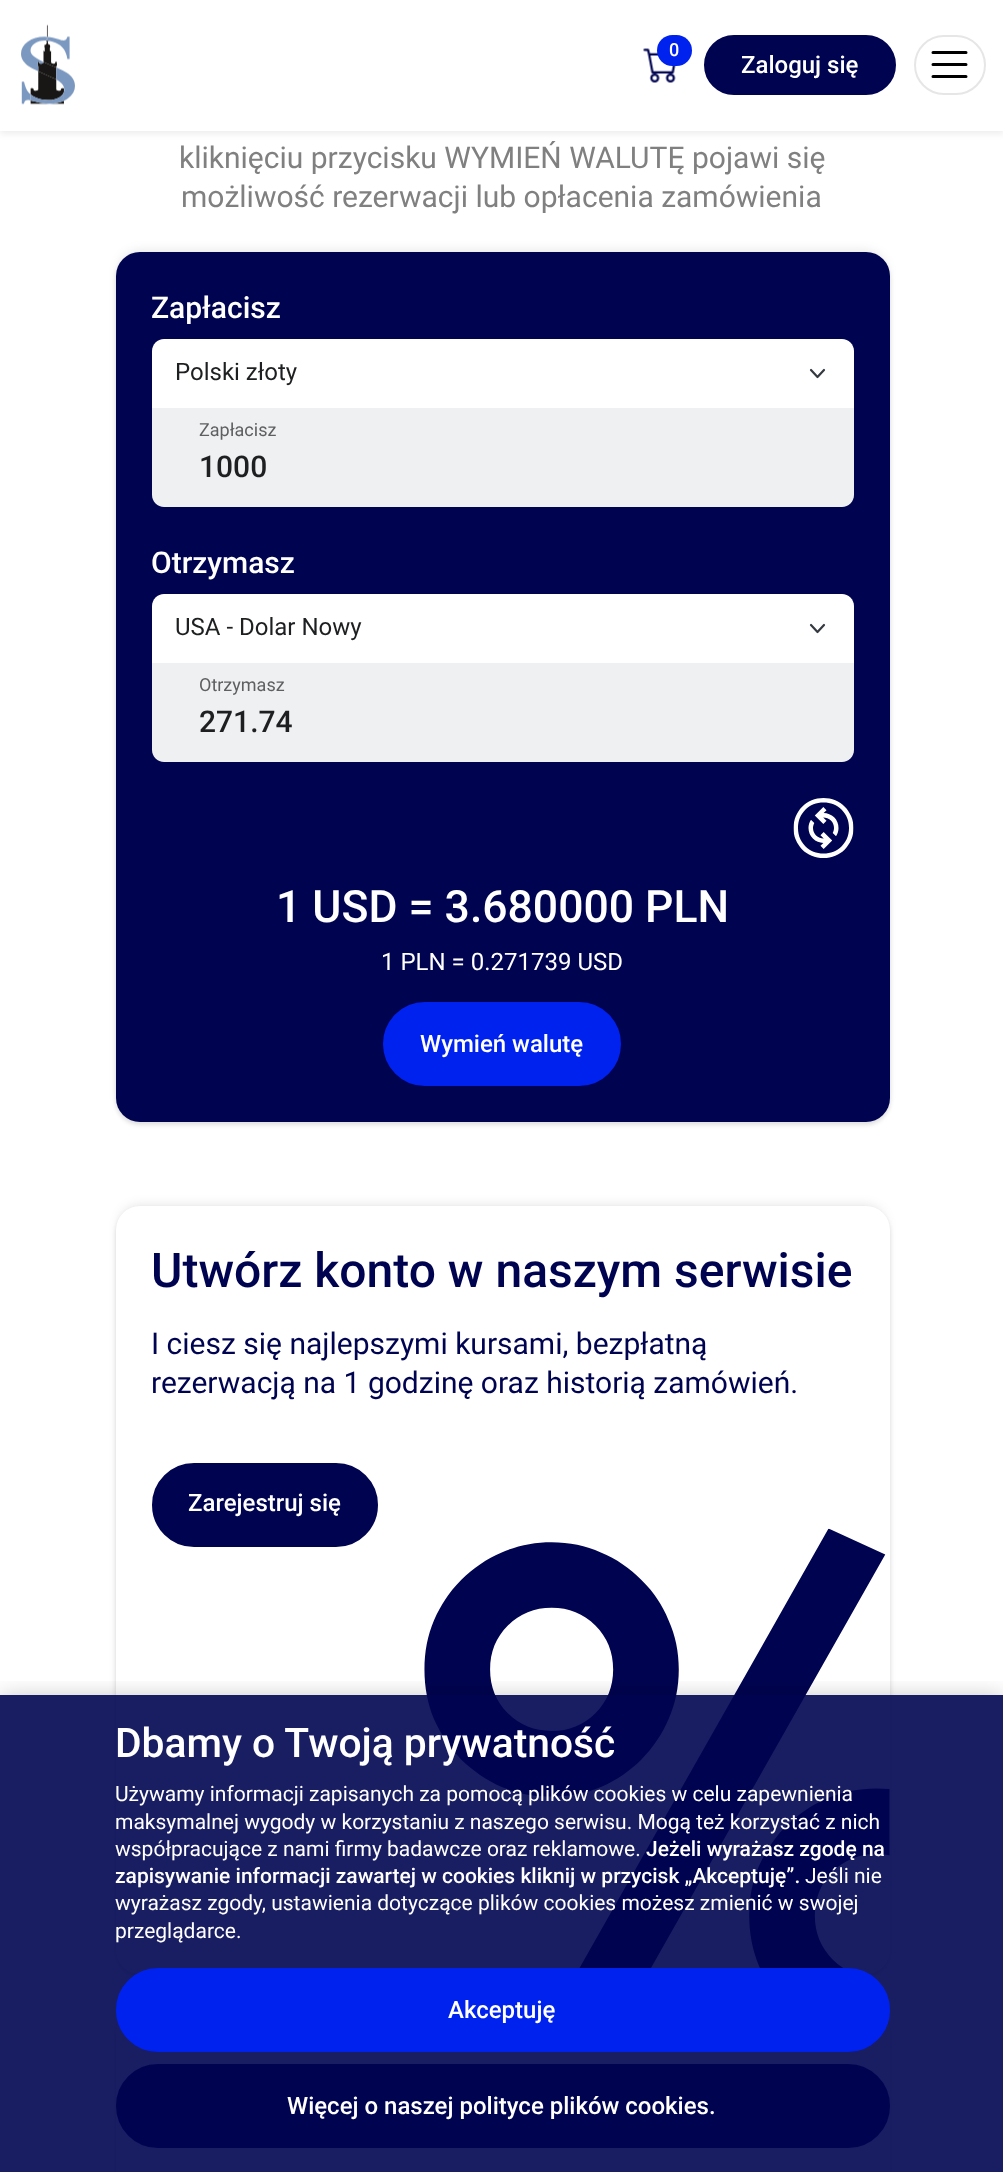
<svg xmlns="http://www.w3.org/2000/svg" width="1003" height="2172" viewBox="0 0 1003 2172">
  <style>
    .t1 { font: 500 18px Roboto; fill: #fff; }
    .t2 { font: 500 24px Roboto; fill: #fff; }
    .t3 { font: 30px Roboto; fill: #808080; }
    .t4 { font: 500 30px Roboto; fill: #fff; }
    .t5 { font: 24px Roboto; fill: #1d1f20; }
    .t6 { font: 18px Roboto; fill: #5d5f61; }
    .t7 { font: 500 30px Roboto; fill: #1d1f20; }
    .t8 { font: 500 44.5px Roboto; fill: #fff; }
    .t9 { font: 24px Roboto; fill: #fff; }
    .t10 { font: 500 48px Roboto; fill: #000450; }
    .t11 { font: 30px Roboto; fill: #000450; }
    .t12 { font: 500 40.75px Roboto; fill: #fff; }
    .t13 { font: 21px Roboto; fill: #fff; }
    .t14 { font: 500 21px Roboto; fill: #fff; }
  </style>
  <defs>
    <clipPath id="clip1"><rect x="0" y="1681" width="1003" height="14"/></clipPath>
  </defs>
  <rect width="100%" height="100%" fill="#fff"/>
  <rect x="0" y="3" width="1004" height="131" fill="#00000012" filter="blur(3px)"/>
  <rect x="0" y="0" width="1003" height="131" fill="#fff"/>
  <image x="21" y="24" width="54" height="81" href="images/1.png"/>
  <image x="643" y="48" width="33" height="35" href="images/2.png"/>
  <rect x="657" y="35" width="35" height="31" rx="15.5" fill="#0022ef"/>
  <text x="669" y="56" class="t1">0</text>
  <rect x="915" y="36" width="70" height="58" rx="29" fill="none" stroke="#e6e6e6" stroke-width="2"/>
  <path d="M933 52.5H966M933 64.5H966M933 76.5H966" fill="none" stroke="#000" stroke-width="3" stroke-linecap="round"/>
  <rect x="705" y="36" width="190" height="58" rx="29" fill="#000450" stroke="#000450" stroke-width="2"/>
  <text x="741" y="73" class="t2">Zaloguj się</text>
  <text x="179" y="168" class="t3">kliknięciu przycisku WYMIEŃ WALUTĘ pojawi się</text>
  <text x="181" y="207" class="t3">możliwość rezerwacji lub opłacenia zamówienia</text>
  <rect x="120" y="252" width="765" height="861" rx="20" fill="#0000001f" filter="blur(6px)"/>
  <rect x="116" y="255" width="774" height="870" rx="24" fill="#0000001f" filter="blur(2px)"/>
  <rect x="116" y="252" width="774" height="870" rx="24" fill="#000450"/>
  <text x="151" y="318" class="t4">Zapłacisz</text>
  <path d="M164 339H842C848.5 339 854 344.5 854 351V408H152V351C152 344.5 157.5 339 164 339Z" fill="#fff"/>
  <path d="M811 370L817.5 377L824 370" fill="none" stroke="#343a40" stroke-width="2.2" stroke-linecap="round" stroke-linejoin="round"/>
  <text x="175" y="380" class="t5">Polski złoty</text>
  <path d="M152 408H854V495C854 501.5 848.5 507 842 507H164C157.5 507 152 501.5 152 495Z" fill="#eff0f1"/>
  <text x="199" y="436" class="t6">Zapłacisz</text>
  <text x="199" y="477" class="t7">1000</text>
  <text x="151" y="573" class="t4">Otrzymasz</text>
  <path d="M164 594H842C848.5 594 854 599.5 854 606V663H152V606C152 599.5 157.5 594 164 594Z" fill="#fff"/>
  <path d="M811 625L817.5 632L824 625" fill="none" stroke="#343a40" stroke-width="2.2" stroke-linecap="round" stroke-linejoin="round"/>
  <text x="175" y="635" class="t5">USA - Dolar Nowy</text>
  <path d="M152 663H854V750C854 756.5 848.5 762 842 762H164C157.5 762 152 756.5 152 750Z" fill="#eff0f1"/>
  <text x="199" y="691" class="t6">Otrzymasz</text>
  <text x="199" y="732" class="t7">271.74</text>
  <image x="793" y="798" width="61" height="60" href="images/3.png"/>
  <text x="276" y="922" class="t8">1 USD = 3.680000 PLN</text>
  <text x="381" y="970" class="t9">1 PLN = 0.271739 USD</text>
  <rect x="384" y="1003" width="236" height="82" rx="41" fill="#0022ef" stroke="#0022ef" stroke-width="2"/>
  <text x="420" y="1052" class="t2">Wymień walutę</text>
  <rect x="120" y="1206" width="765" height="759" rx="20" fill="#0000001f" filter="blur(6px)"/>
  <rect x="116" y="1209" width="774" height="768" rx="24" fill="#0000001f" filter="blur(2px)"/>
  <rect x="116" y="1206" width="774" height="768" rx="24" fill="#fff"/>
  <text x="151" y="1287" class="t10">Utwórz konto w naszym serwisie</text>
  <text x="151" y="1354" class="t11">I ciesz się najlepszymi kursami, bezpłatną</text>
  <text x="151" y="1393" class="t11">rezerwacją na 1 godzinę oraz historią zamówień.</text>
  <rect x="153" y="1464" width="224" height="82" rx="41" fill="#000450" stroke="#000450" stroke-width="2"/>
  <text x="188" y="1511" class="t2">Zarejestruj się</text>
  <image x="424" y="1528" width="466" height="440" href="images/4.png"/>
  <rect x="120" y="2010" width="765" height="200" rx="20" fill="#0000001f" filter="blur(6px)"/>
  <rect x="116" y="2013" width="774" height="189" rx="24" fill="#0000001f" filter="blur(2px)"/>
  <rect x="116" y="2010" width="774" height="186" rx="24" fill="#fff"/>
  <g clip-path="url(#clip1)">
    <rect x="0" y="1698" width="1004" height="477" fill="#00000040" filter="blur(12px)"/>
  </g>
  <rect x="0" y="1695" width="1003" height="477" fill="#000450e6"/>
  <text x="115" y="1757" class="t12">Dbamy o Twoją prywatność</text>
  <text x="115" y="1801" class="t13">Używamy informacji zapisanych za pomocą plików cookies w celu zapewnienia</text>
  <text x="115" y="1829" class="t13">maksymalnej wygody w korzystaniu z naszego serwisu. Mogą też korzystać z nich</text>
  <text x="115" y="1856" class="t13">współpracujące z nami firmy badawcze oraz reklamowe.</text>
  <text x="646" y="1856" class="t14">Jeżeli wyrażasz zgodę na</text>
  <text x="115" y="1883" class="t14">zapisywanie informacji zawartej w cookies kliknij w przycisk „Akceptuję”.</text>
  <text x="805" y="1883" class="t13">Jeśli nie</text>
  <text x="115" y="1910" class="t13">wyrażasz zgody, ustawienia dotyczące plików cookies możesz zmienić w swojej</text>
  <text x="115" y="1938" class="t13">przeglądarce.</text>
  <rect x="117" y="1969" width="772" height="82" rx="41" fill="#0022ef" stroke="#0022ef" stroke-width="2"/>
  <text x="448" y="2018" class="t2">Akceptuję</text>
  <rect x="117" y="2065" width="772" height="82" rx="41" fill="#000450" stroke="#000450" stroke-width="2"/>
  <text x="287" y="2114" class="t2">Więcej o naszej polityce plików cookies.</text>
</svg>
